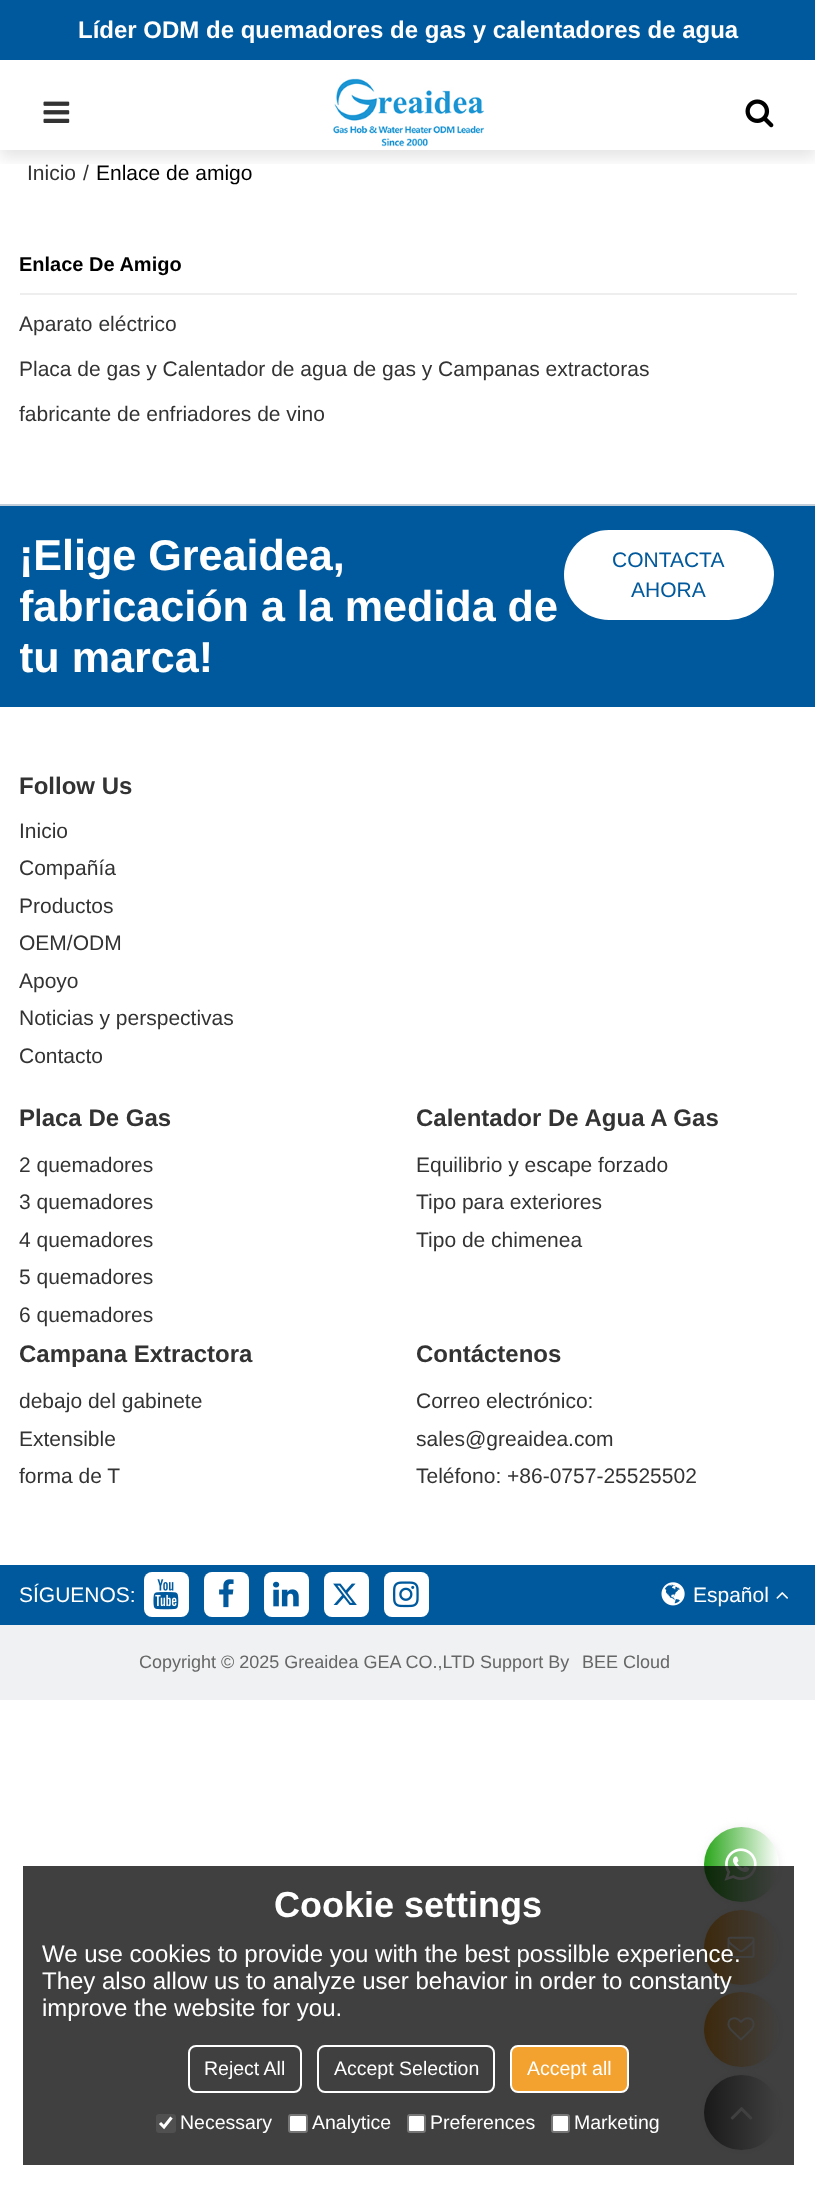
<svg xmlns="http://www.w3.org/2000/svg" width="815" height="2186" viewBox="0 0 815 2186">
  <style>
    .t1 { font: bold 24px Liberation Sans; fill: #fff; }
    .t2 { font: 21px Liberation Sans; fill: #333; }
    .t3 { font: 21px Liberation Sans; fill: #000; }
    .t4 { font: bold 20px Liberation Sans; fill: #000; }
    .t5 { font: bold 43.1px Liberation Sans; fill: #fff; }
    .t6 { font: 21px Liberation Sans; fill: #00599c; }
    .t7 { font: bold 24px Liberation Sans; fill: #333; }
    .t8 { font: 21px Liberation Sans; fill: #fff; }
    .t9 { font: 18px Liberation Sans; fill: #666; }
    .t10 { font: bold 36px Liberation Sans; fill: #fff; }
    .t11 { font: 24px Liberation Sans; fill: #fff; }
    .t12 { font: 19.5px Liberation Sans; fill: #fff; }
  </style>
  <defs>
    <clipPath id="clip1"><rect x="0" y="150" width="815" height="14"/></clipPath>
    <clipPath id="clip2"><rect x="20" y="530" width="544" height="153"/></clipPath>
    <linearGradient id="g1" gradientUnits="userSpaceOnUse" x1="704" y1="1865" x2="779" y2="1865"><stop offset="0" stop-color="#29a61a"/><stop offset="1" stop-color="#fff"/></linearGradient>
    <linearGradient id="g2" gradientUnits="userSpaceOnUse" x1="704" y1="1947" x2="779" y2="1947"><stop offset="0" stop-color="#f3a230"/><stop offset="1" stop-color="#fff"/></linearGradient>
    <linearGradient id="g3" gradientUnits="userSpaceOnUse" x1="704" y1="2030" x2="779" y2="2030"><stop offset="0" stop-color="#f3a230"/><stop offset="1" stop-color="#fff"/></linearGradient>
    <linearGradient id="g4" gradientUnits="userSpaceOnUse" x1="704" y1="2112" x2="779" y2="2112"><stop offset="0" stop-color="#666"/><stop offset="1" stop-color="#fff"/></linearGradient>
  </defs>
  <rect width="100%" height="100%" fill="#fff"/>
  <rect x="0" y="0" width="815" height="60" fill="#00599c"/>
  <text x="78" y="38" class="t1">Líder ODM de quemadores de gas y calentadores de agua</text>
  <g clip-path="url(#clip1)">
    <rect x="0" y="83" width="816" height="75" fill="#0000001a" filter="blur(7.5px)"/>
  </g>
  <image x="43" y="101" width="27" height="22" href="images/1.png"/>
  <image x="333" y="78" width="152" height="69" href="images/2.png"/>
  <image x="745" y="99" width="29" height="29" href="images/3.png"/>
  <text x="27" y="180" class="t2">Inicio</text>
  <text x="83" y="180" class="t2">/</text>
  <text x="96" y="180" class="t3">Enlace de amigo</text>
  <rect x="0" y="504" width="815" height="2" fill="#c2cfda"/>
  <rect x="20" y="293" width="777" height="2" fill="#eee"/>
  <text x="19" y="271" class="t4">Enlace De Amigo</text>
  <text x="19" y="331" class="t2">Aparato eléctrico</text>
  <text x="19" y="376" class="t2">Placa de gas y Calentador de agua de gas y Campanas extractoras</text>
  <text x="19" y="421" class="t2">fabricante de enfriadores de vino</text>
  <rect x="0" y="506" width="815" height="201" fill="#00599c"/>
  <text x="19" y="570" class="t5">¡Elige Greaidea,</text>
  <g clip-path="url(#clip2)">
    <text x="19" y="621" class="t5">fabricación a la medida de</text>
    <text x="19" y="672" class="t5">tu marca!</text>
  </g>
  <rect x="564" y="530" width="210" height="90" rx="45" fill="#fff"/>
  <text x="612" y="567" class="t6">CONTACTA</text>
  <text x="631" y="597" class="t6">AHORA</text>
  <text x="19" y="794" class="t7">Follow Us</text>
  <text x="19" y="838" class="t2">Inicio</text>
  <text x="19" y="875" class="t2">Compañía</text>
  <text x="19" y="913" class="t2">Productos</text>
  <text x="19" y="950" class="t2">OEM/ODM</text>
  <text x="19" y="988" class="t2">Apoyo</text>
  <text x="19" y="1025" class="t2">Noticias y perspectivas</text>
  <text x="19" y="1063" class="t2">Contacto</text>
  <text x="19" y="1126" class="t7">Placa De Gas</text>
  <text x="19" y="1172" class="t2">2 quemadores</text>
  <text x="19" y="1209" class="t2">3 quemadores</text>
  <text x="19" y="1247" class="t2">4 quemadores</text>
  <text x="19" y="1284" class="t2">5 quemadores</text>
  <text x="19" y="1322" class="t2">6 quemadores</text>
  <text x="416" y="1126" class="t7">Calentador De Agua A Gas</text>
  <text x="416" y="1172" class="t2">Equilibrio y escape forzado</text>
  <text x="416" y="1209" class="t2">Tipo para exteriores</text>
  <text x="416" y="1247" class="t2">Tipo de chimenea</text>
  <text x="19" y="1362" class="t7">Campana Extractora</text>
  <text x="19" y="1408" class="t2">debajo del gabinete</text>
  <text x="19" y="1446" class="t2">Extensible</text>
  <text x="19" y="1483" class="t2">forma de T</text>
  <text x="416" y="1362" class="t7">Contáctenos</text>
  <text x="416" y="1408" class="t2">Correo electrónico:</text>
  <text x="416" y="1446" class="t2">sales@greaidea.com</text>
  <text x="416" y="1483" class="t2">Teléfono: +86-0757-25525502</text>
  <rect x="0" y="1565" width="815" height="60" fill="#00599c"/>
  <text x="19" y="1602" class="t8">SÍGUENOS:</text>
  <rect x="144" y="1572" width="45" height="45" rx="8" fill="#fff"/>
  <image x="153" y="1579" width="26" height="31" href="images/4.png"/>
  <rect x="204" y="1572" width="45" height="45" rx="8" fill="#fff"/>
  <image x="219" y="1579" width="15" height="29" href="images/5.png"/>
  <rect x="264" y="1572" width="45" height="45" rx="8" fill="#fff"/>
  <image x="273" y="1581" width="26" height="26" href="images/6.png"/>
  <rect x="324" y="1572" width="45" height="45" rx="8" fill="#fff"/>
  <image x="333" y="1583" width="24" height="22" href="images/7.png"/>
  <rect x="384" y="1572" width="45" height="45" rx="8" fill="#fff"/>
  <image x="393" y="1581" width="26" height="27" href="images/8.png"/>
  <image x="661" y="1582" width="24" height="24" href="images/9.png"/>
  <text x="693" y="1602" class="t8">Español</text>
  <image x="776" y="1592" width="12" height="7" href="images/10.png"/>
  <rect x="0" y="1625" width="815" height="75" fill="#eff1f3"/>
  <text x="139" y="1668" class="t9">Copyright © 2025 Greaidea GEA CO.,LTD Support By</text>
  <text x="582" y="1668" class="t9">BEE Cloud</text>
  <rect x="704" y="1827" width="75" height="75" rx="37.5" fill="#eee" filter="blur(4px)"/>
  <circle cx="741.5" cy="1864.5" r="37.5" fill="url(#g1)"/>
  <image x="724" y="1848" width="33" height="33" href="images/11.png"/>
  <rect x="704" y="1910" width="75" height="75" rx="37.5" fill="#eee" filter="blur(4px)"/>
  <circle cx="741.5" cy="1947.5" r="37.5" fill="url(#g2)"/>
  <image x="727" y="1936" width="28" height="22" href="images/12.png"/>
  <rect x="704" y="1992" width="75" height="75" rx="37.5" fill="#eee" filter="blur(4px)"/>
  <circle cx="741.5" cy="2029.5" r="37.5" fill="url(#g3)"/>
  <image x="727" y="2017" width="28" height="24" href="images/13.png"/>
  <rect x="704" y="2075" width="75" height="75" rx="37.5" fill="#eee" filter="blur(4px)"/>
  <circle cx="741.5" cy="2112.5" r="37.5" fill="url(#g4)"/>
  <image x="730" y="2107" width="23" height="13" href="images/14.png"/>
  <rect x="23" y="1866" width="771" height="299" fill="#000000bf"/>
  <text x="274" y="1917" class="t10">Cookie settings</text>
  <text x="42" y="1962" class="t11">We use cookies to provide you with the best possilble experience.</text>
  <text x="42" y="1989" class="t11">They also allow us to analyze user behavior in order to constanty</text>
  <text x="42" y="2016" class="t11">improve the website for you.</text>
  <rect x="189" y="2046" width="112" height="46" rx="7" fill="none" stroke="#fff" stroke-width="2"/>
  <text x="204" y="2075" class="t12">Reject All</text>
  <rect x="318" y="2046" width="176" height="46" rx="7" fill="none" stroke="#fff" stroke-width="2"/>
  <text x="334" y="2075" class="t12">Accept Selection</text>
  <rect x="511" y="2046" width="117" height="46" rx="7" fill="#f3a230" stroke="#fff" stroke-width="2"/>
  <text x="527" y="2075" class="t12">Accept all</text>
  <rect x="156" y="2114" width="20" height="19" rx="3" fill="#505050"/>
  <path d="M160 2123L164 2127L171.5 2117.5" fill="none" stroke="#fff" stroke-width="3.1"/>
  <text x="180" y="2129" class="t12">Necessary</text>
  <rect x="289" y="2115" width="18" height="17" rx="2" fill="#fff" stroke="#767676" stroke-width="2"/>
  <text x="312" y="2129" class="t12">Analytice</text>
  <rect x="408" y="2115" width="17" height="17" rx="2" fill="#fff" stroke="#767676" stroke-width="2"/>
  <text x="430" y="2129" class="t12">Preferences</text>
  <rect x="552" y="2115" width="17" height="17" rx="2" fill="#fff" stroke="#767676" stroke-width="2"/>
  <text x="574" y="2129" class="t12">Marketing</text>
</svg>
